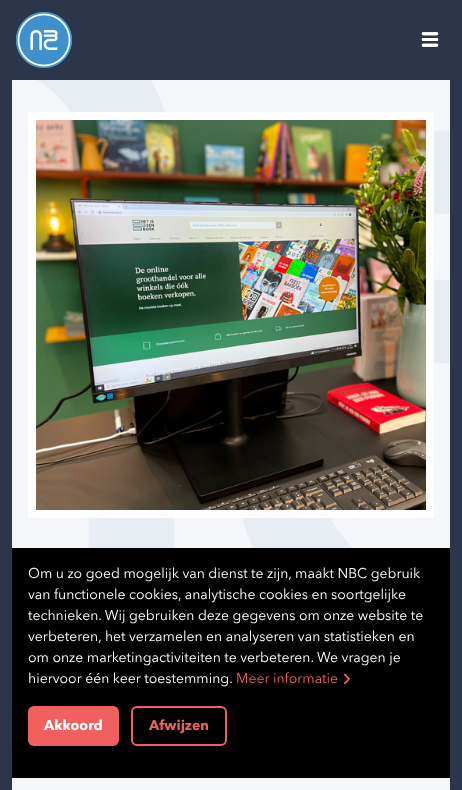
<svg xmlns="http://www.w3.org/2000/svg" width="462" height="790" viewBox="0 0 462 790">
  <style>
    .t1 { font: 14px Avenir Next; fill: #fff; }
    .t2 { font: 14px Avenir Next; fill: #f15f5f; }
    .t3 { font: bold 14px Avenir Next; fill: #fff; }
    .t4 { font: bold 14px Avenir Next; fill: #f15f5f; }
  </style>
  <rect width="100%" height="100%" fill="#2b364a"/>
  <image x="16" y="12" width="56" height="56" href="images/1.png"/>
  <image x="421" y="32" width="18" height="15" href="images/2.png"/>
  <image x="16" y="12" width="56" height="56" href="images/3.png"/>
  <image x="421" y="32" width="18" height="15" href="images/4.png"/>
  <rect x="12" y="80" width="438" height="710" fill="#f5f6fa"/>
  <image x="37" y="80" width="413" height="468" href="images/5.png"/>
  <rect x="28" y="112" width="406" height="406" fill="#fff"/>
  <image x="36" y="120" width="390" height="390" href="images/6.png"/>
  <rect x="12" y="548" width="438" height="230" fill="#000"/>
  <text x="28" y="578" class="t1">Om u zo goed mogelijk van dienst te zijn, maakt NBC gebruik</text>
  <text x="28" y="599" class="t1">van functionele cookies, analytische cookies en soortgelijke</text>
  <text x="28" y="620" class="t1">technieken. Wij gebruiken deze gegevens om onze website te</text>
  <text x="28" y="641" class="t1">verbeteren, het verzamelen en analyseren van statistieken en</text>
  <text x="28" y="662" class="t1">om onze marketingactiviteiten te verbeteren. We vragen je</text>
  <text x="28" y="683" class="t1">hiervoor één keer toestemming.</text>
  <text x="236" y="683" class="t2">Meer informatie</text>
  <image x="344" y="673" width="6" height="12" href="images/7.png"/>
  <rect x="28" y="706" width="91" height="40" rx="6" fill="#f15f5f"/>
  <text x="44" y="730" class="t3">Akkoord</text>
  <rect x="132" y="707" width="94" height="38" rx="5" fill="none" stroke="#f15f5f" stroke-width="2"/>
  <text x="149" y="730" class="t4">Afwijzen</text>
</svg>
